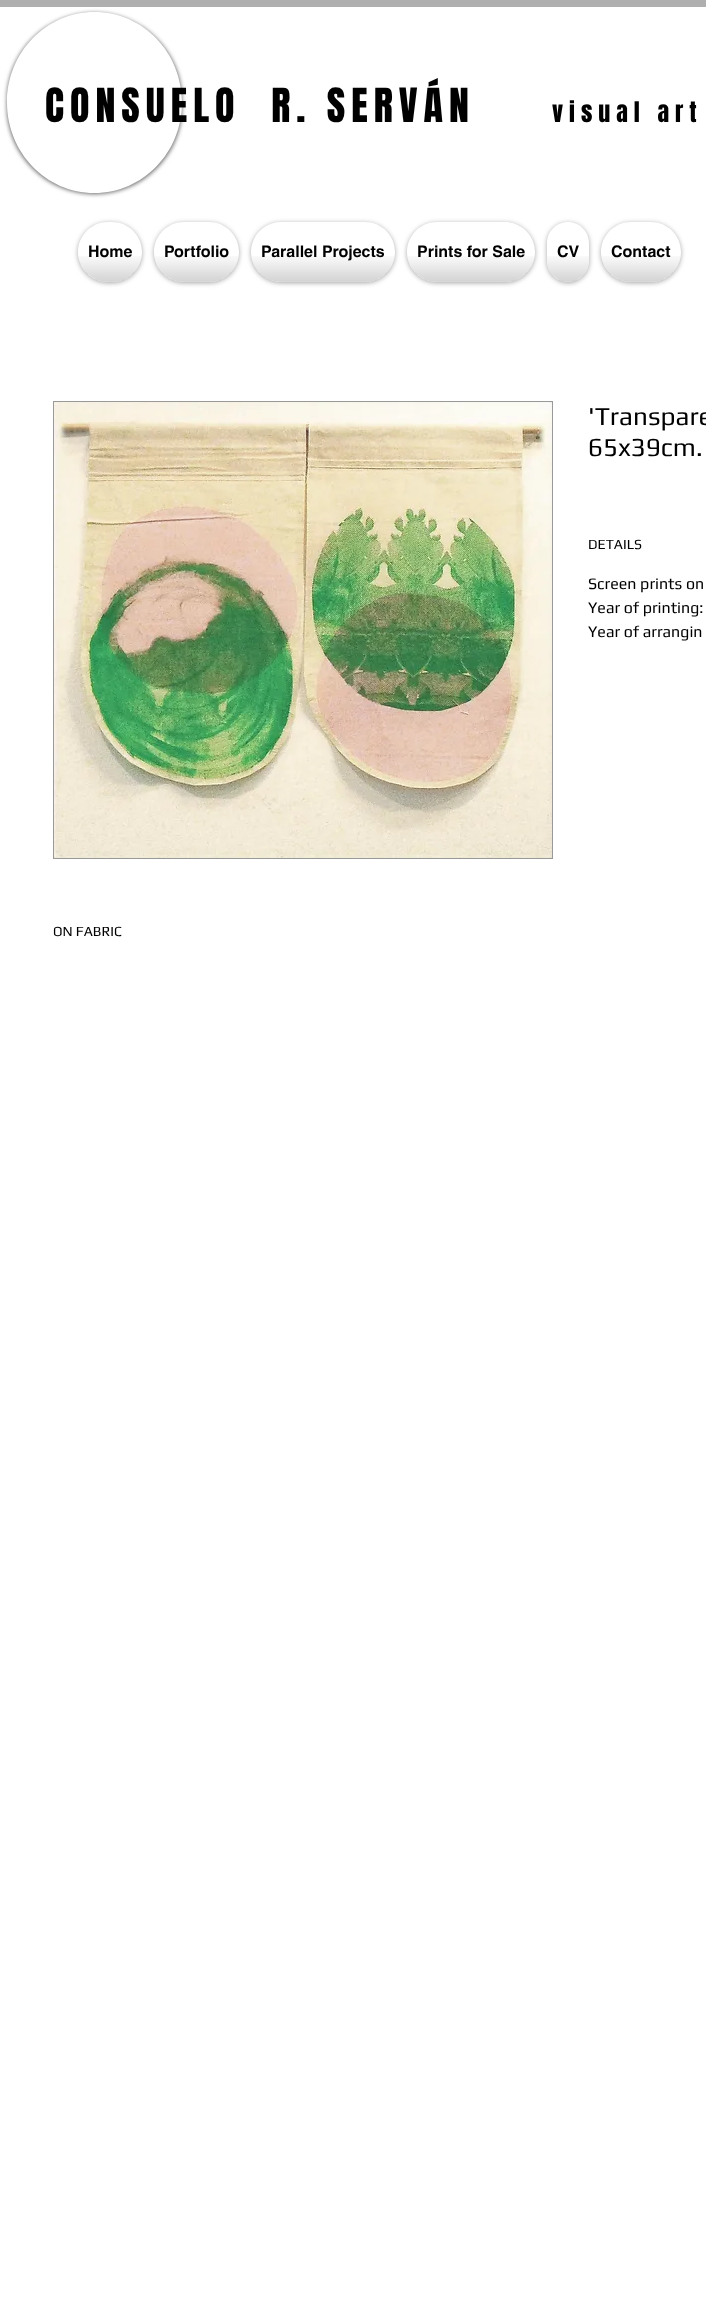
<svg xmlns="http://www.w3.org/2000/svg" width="706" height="2317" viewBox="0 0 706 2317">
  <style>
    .t1 { font: 40px Anton; letter-spacing: 6px; fill: #000; }
    .t2 { font: 24px Anton; letter-spacing: 6px; fill: #000; }
    .t3 { font: bold 16px helvetica; fill: #000; }
    .t4 { font: 26px Play; fill: #000; }
    .t5 { font: 14px Play; fill: #000; }
    .t6 { font: 16px Play; fill: #000; }
  </style>
  <defs>
    <clipPath id="clip1"><path d="M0 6H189V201H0ZM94.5 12C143 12 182 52.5 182 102.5C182 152.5 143 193 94.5 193C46 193 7 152.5 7 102.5C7 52.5 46 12 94.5 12Z" clip-rule="evenodd"/></clipPath>
    <clipPath id="clip2"><path d="M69 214H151V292H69ZM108 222H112C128.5 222 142 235.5 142 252C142 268.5 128.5 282 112 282H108C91.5 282 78 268.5 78 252C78 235.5 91.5 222 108 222Z" clip-rule="evenodd"/></clipPath>
    <clipPath id="clip3"><path d="M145 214H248V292H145ZM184 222H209C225.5 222 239 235.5 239 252C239 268.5 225.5 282 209 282H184C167.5 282 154 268.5 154 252C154 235.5 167.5 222 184 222Z" clip-rule="evenodd"/></clipPath>
    <clipPath id="clip4"><path d="M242 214H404V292H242ZM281 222H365C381.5 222 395 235.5 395 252C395 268.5 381.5 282 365 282H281C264.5 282 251 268.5 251 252C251 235.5 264.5 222 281 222Z" clip-rule="evenodd"/></clipPath>
    <clipPath id="clip5"><path d="M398 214H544V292H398ZM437 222H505C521.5 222 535 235.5 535 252C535 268.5 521.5 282 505 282H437C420.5 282 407 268.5 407 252C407 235.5 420.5 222 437 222Z" clip-rule="evenodd"/></clipPath>
    <clipPath id="clip6"><path d="M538 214H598V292H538ZM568 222C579.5 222 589 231.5 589 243V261C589 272.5 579.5 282 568 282C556.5 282 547 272.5 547 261V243C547 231.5 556.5 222 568 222Z" clip-rule="evenodd"/></clipPath>
    <clipPath id="clip7"><path d="M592 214H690V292H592ZM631 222H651C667.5 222 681 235.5 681 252C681 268.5 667.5 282 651 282H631C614.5 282 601 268.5 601 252C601 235.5 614.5 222 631 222Z" clip-rule="evenodd"/></clipPath>
  </defs>
  <rect width="100%" height="100%" fill="#fff"/>
  <rect x="0" y="0" width="706" height="7" fill="#afafaf"/>
  <g clip-path="url(#clip1)">
    <rect x="7" y="13" width="175" height="181" rx="87.5" fill="#00000099" filter="blur(2px)"/>
  </g>
  <text x="45" y="122" class="t1" xml:space="preserve">CONSUELO  R. SERVÁN</text>
  <text x="552" y="122" class="t2">visual art</text>
  <g clip-path="url(#clip2)">
    <rect x="78" y="223" width="64" height="60" rx="30" fill="#6b6a6a99" filter="blur(2.5px)"/>
  </g>
  <image x="79" y="256" width="62" height="26" href="images/1.png"/>
  <text x="88" y="257" class="t3">Home</text>
  <g clip-path="url(#clip3)">
    <rect x="154" y="223" width="85" height="60" rx="30" fill="#6b6a6a99" filter="blur(2.5px)"/>
  </g>
  <image x="155" y="256" width="83" height="26" href="images/2.png"/>
  <text x="164" y="257" class="t3">Portfolio</text>
  <g clip-path="url(#clip4)">
    <rect x="251" y="223" width="144" height="60" rx="30" fill="#6b6a6a99" filter="blur(2.5px)"/>
  </g>
  <image x="252" y="256" width="142" height="26" href="images/3.png"/>
  <text x="261" y="257" class="t3">Parallel Projects</text>
  <g clip-path="url(#clip5)">
    <rect x="407" y="223" width="128" height="60" rx="30" fill="#6b6a6a99" filter="blur(2.5px)"/>
  </g>
  <image x="408" y="256" width="126" height="26" href="images/4.png"/>
  <text x="417" y="257" class="t3">Prints for Sale</text>
  <g clip-path="url(#clip6)">
    <rect x="547" y="223" width="42" height="60" rx="21" fill="#6b6a6a99" filter="blur(2.5px)"/>
  </g>
  <image x="547" y="256" width="42" height="26" href="images/5.png"/>
  <text x="557" y="257" class="t3">CV</text>
  <g clip-path="url(#clip7)">
    <rect x="601" y="223" width="80" height="60" rx="30" fill="#6b6a6a99" filter="blur(2.5px)"/>
  </g>
  <image x="602" y="256" width="78" height="26" href="images/6.png"/>
  <text x="611" y="257" class="t3">Contact</text>
  <text x="588" y="425" class="t4">'Transpare</text>
  <text x="588" y="456" class="t4">65x39cm.</text>
  <text x="588" y="549" class="t5">DETAILS</text>
  <text x="588" y="589" class="t6">Screen prints on</text>
  <text x="588" y="613" class="t6">Year of printing:</text>
  <text x="588" y="637" class="t6">Year of arrangin</text>
  <rect x="53.5" y="401.5" width="499" height="457" fill="none" stroke="#999"/>
  <image x="54" y="402" width="498" height="456" href="images/7.png"/>
  <text x="53" y="936" class="t5">ON FABRIC</text>
</svg>
